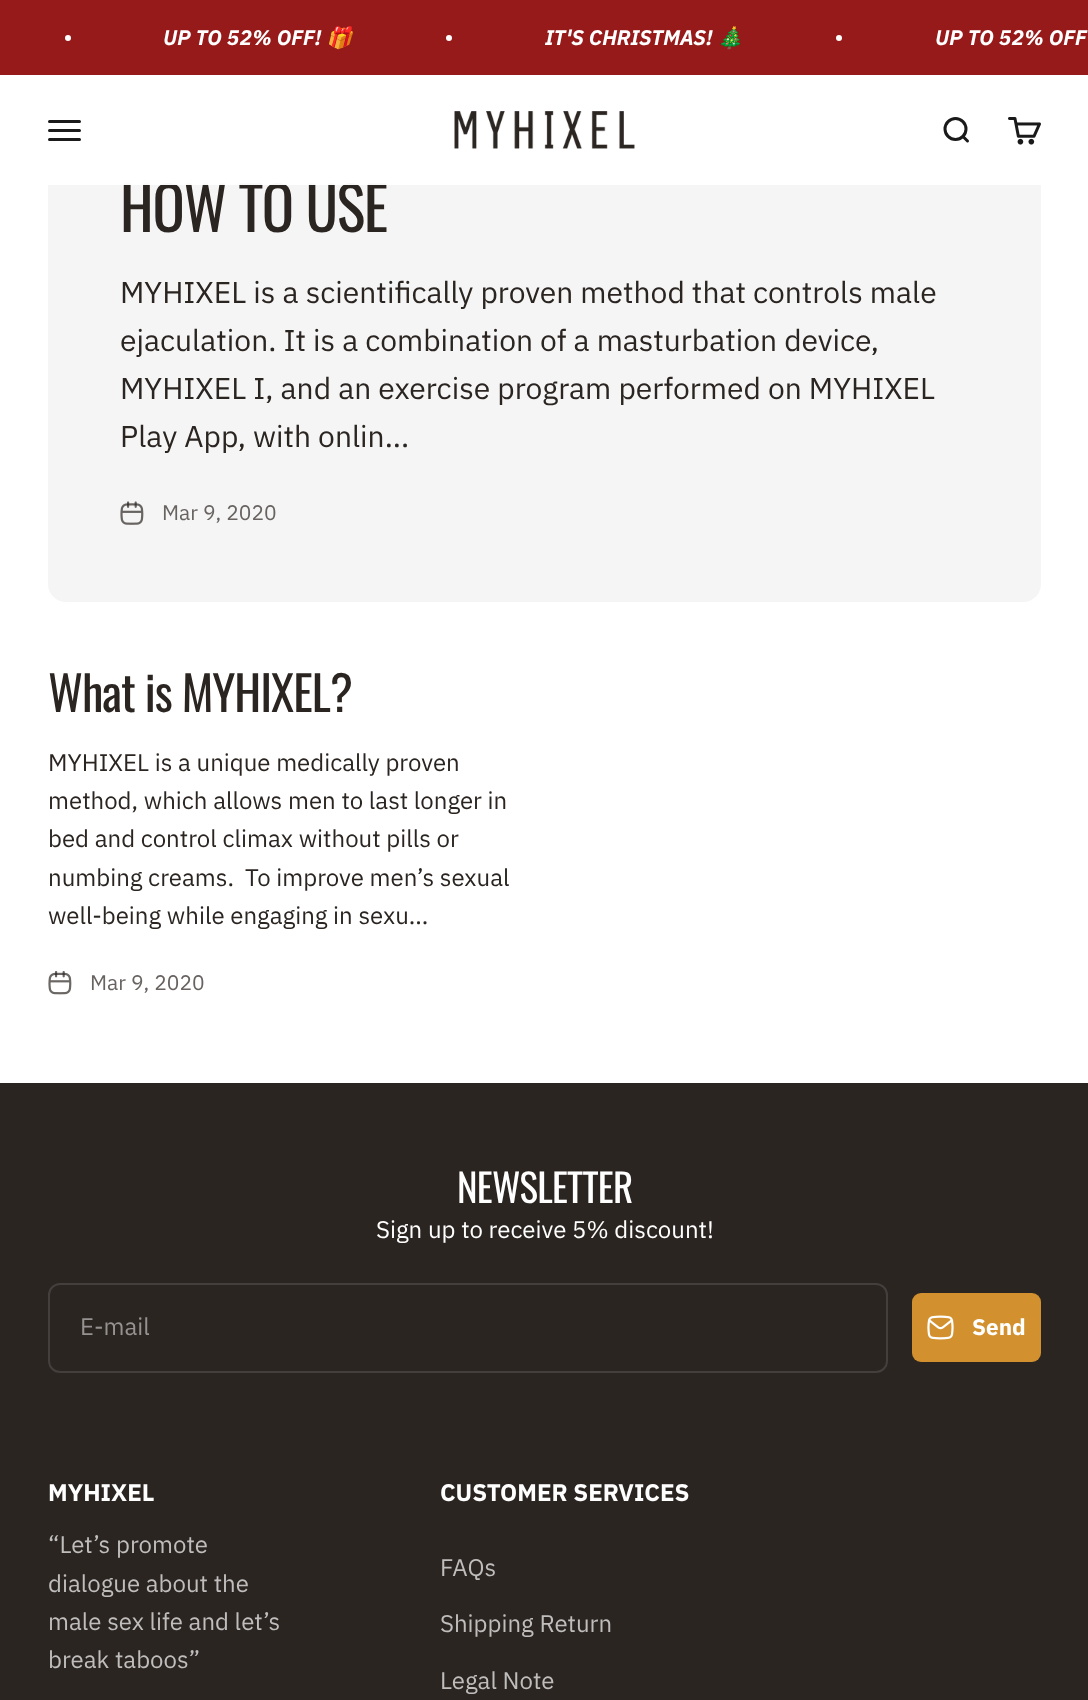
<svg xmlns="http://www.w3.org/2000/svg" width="1088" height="1700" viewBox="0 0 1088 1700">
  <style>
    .t1 { font: italic bold 21px IBM Plex Sans; fill: #fff; }
    .t2 { font: italic bold 21px Noto Color Emoji; fill: #fff; }
    .t3 { font: 60px Oswald; letter-spacing: -1.25px; fill: #2b2522; }
    .t4 { font: 30px IBM Plex Sans; fill: #2b2522; }
    .t5 { font: 21px IBM Plex Sans; fill: #686361; }
    .t6 { font: 48px Oswald; letter-spacing: -1px; fill: #2b2522; }
    .t7 { font: 24px IBM Plex Sans; fill: #2b2522; }
    .t8 { font: 39px Oswald; letter-spacing: -0.75px; fill: #fff; }
    .t9 { font: 24px IBM Plex Sans; fill: #fff; }
    .t10 { font: 24px IBM Plex Sans; fill: #959291; }
    .t11 { font: bold 22.5px IBM Plex Sans; fill: #fff; }
    .t12 { font: bold 24px IBM Plex Sans; fill: #fff; }
    .t13 { font: 24px IBM Plex Sans; fill: #bfbebd; }
  </style>
  <rect width="100%" height="100%" fill="#fff"/>
  <rect x="0" y="0" width="1088" height="75" fill="#971a1a"/>
  <circle cx="68" cy="38" r="3" fill="#fff"/>
  <text x="163" y="45" class="t1">UP TO 52% OFF!</text>
  <text x="326" y="45" class="t2">🎁</text>
  <circle cx="449" cy="38" r="3" fill="#fff"/>
  <text x="545" y="45" class="t1">IT'S CHRISTMAS!</text>
  <text x="717" y="45" class="t2">🎄</text>
  <circle cx="839" cy="38" r="3" fill="#fff"/>
  <text x="935" y="45" class="t1">UP TO 52% OFF</text>
  <rect x="48" y="101" width="993" height="501" rx="18" fill="#f5f5f5"/>
  <text x="120" y="232" class="t3">HOW TO USE</text>
  <rect x="48" y="101" width="993" height="84" fill="#fffffff5"/>
  <path d="M49.5 121.5H79.5M49.5 130.5H79.5M49.5 139.5H79.5" fill="none" stroke="#1a1a1a" stroke-width="3" stroke-linecap="round"/>
  <image x="454" y="111" width="181" height="38" href="images/1.png"/>
  <circle cx="955.5" cy="129" r="10.5" fill="none" stroke="#1a1a1a" stroke-width="3"/>
  <path d="M963 136.5L967.5 141" fill="none" stroke="#1a1a1a" stroke-width="3" stroke-linecap="round" stroke-linejoin="round"/>
  <image x="1008" y="117" width="33" height="28" href="images/2.png"/>
  <text x="120" y="303" class="t4">MYHIXEL is a scientifically proven method that controls male</text>
  <text x="120" y="351" class="t4">ejaculation. It is a combination of a masturbation device,</text>
  <text x="120" y="399" class="t4">MYHIXEL I, and an exercise program performed on MYHIXEL</text>
  <text x="120" y="447" class="t4">Play App, with onlin...</text>
  <image x="120" y="501" width="24" height="24" href="images/3.png"/>
  <text x="162" y="520" class="t5">Mar 9, 2020</text>
  <text x="48" y="712" class="t6">What is MYHIXEL?</text>
  <text x="48" y="771" class="t7">MYHIXEL is a unique medically proven</text>
  <text x="48" y="809" class="t7">method, which allows men to last longer in</text>
  <text x="48" y="847" class="t7">bed and control climax without pills or</text>
  <text x="48" y="886" class="t7">numbing creams.</text>
  <text x="245" y="886" class="t7">To improve men’s sexual</text>
  <text x="48" y="924" class="t7">well-being while engaging in sexu...</text>
  <image x="48" y="971" width="24" height="24" href="images/4.png"/>
  <text x="90" y="990" class="t5">Mar 9, 2020</text>
  <rect x="0" y="1083" width="1088" height="617" fill="#2b2522"/>
  <text x="457" y="1203" class="t8">NEWSLETTER</text>
  <text x="376" y="1238" class="t9">Sign up to receive 5% discount!</text>
  <rect x="49" y="1284" width="838" height="88" rx="11" fill="none" stroke="#443f3d" stroke-width="2"/>
  <text x="80" y="1335" class="t10">E-mail</text>
  <rect x="912" y="1293" width="129" height="69" rx="9" fill="#d2912e"/>
  <image x="927" y="1315" width="27" height="25" href="images/5.png"/>
  <text x="972" y="1335" class="t11">Send</text>
  <text x="48" y="1501" class="t12">MYHIXEL</text>
  <text x="48" y="1553" class="t13">“Let’s promote</text>
  <text x="48" y="1592" class="t13">dialogue about the</text>
  <text x="48" y="1630" class="t13">male sex life and let’s</text>
  <text x="48" y="1668" class="t13">break taboos”</text>
  <text x="440" y="1501" class="t12">CUSTOMER SERVICES</text>
  <text x="440" y="1576" class="t13">FAQs</text>
  <text x="440" y="1632" class="t13">Shipping Return</text>
  <text x="440" y="1689" class="t13">Legal Note</text>
</svg>
